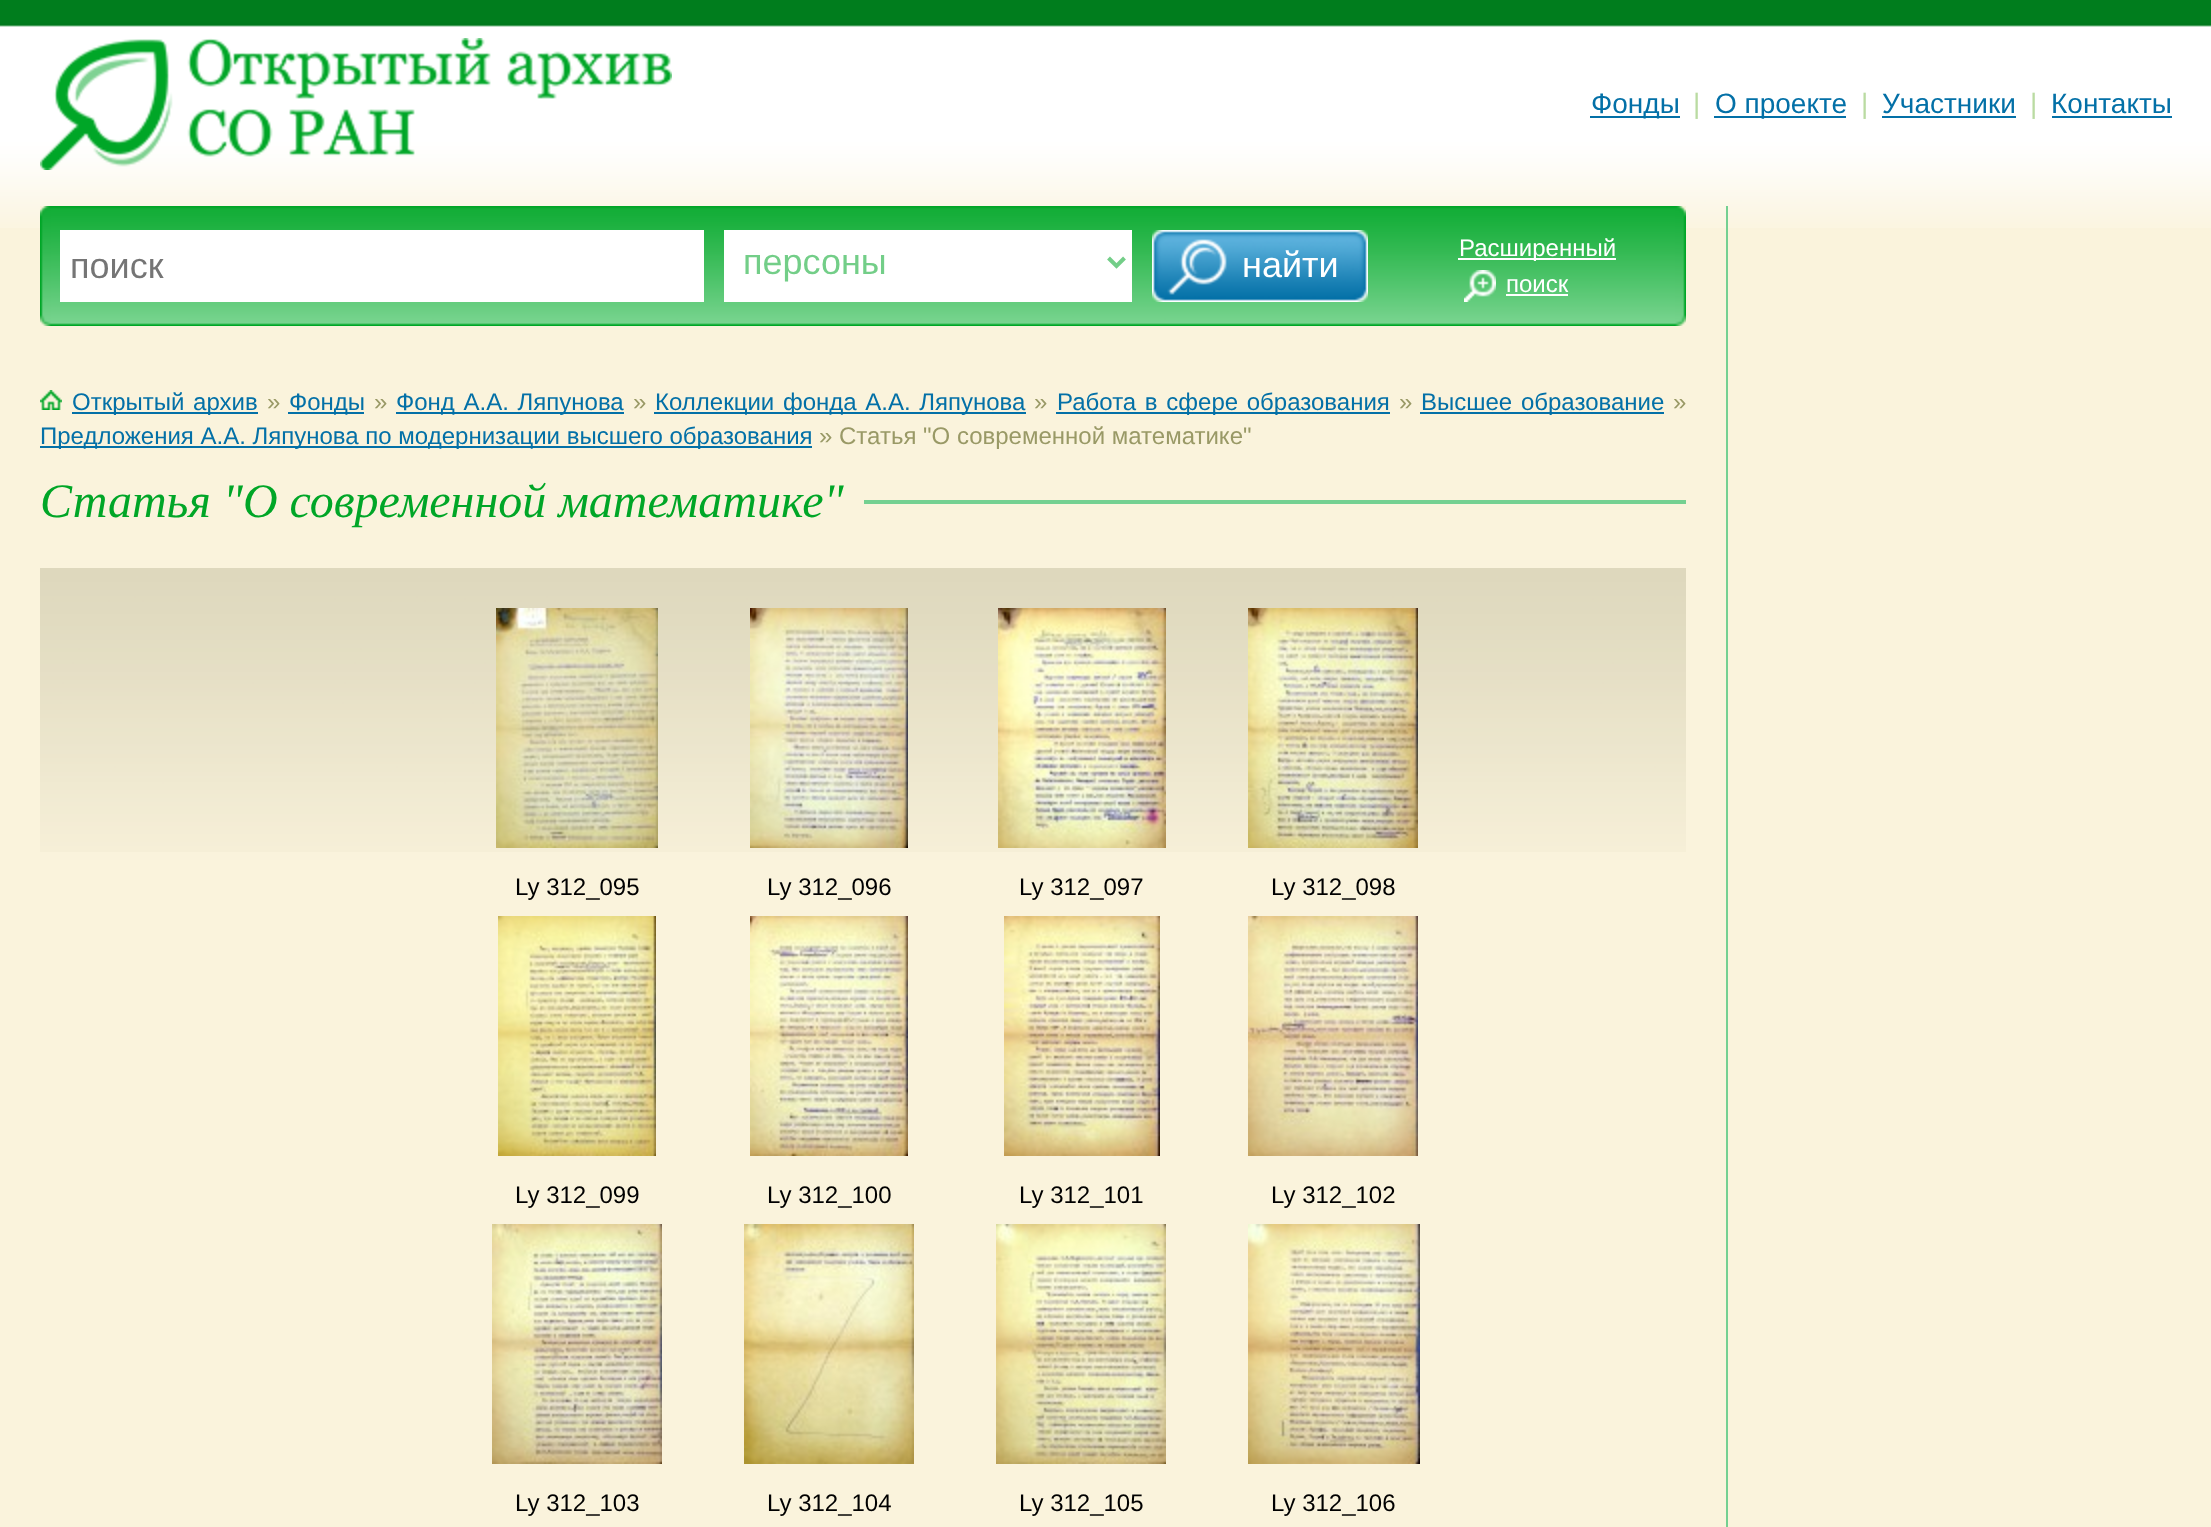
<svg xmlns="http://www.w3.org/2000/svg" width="2211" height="1527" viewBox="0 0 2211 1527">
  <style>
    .t1 { font: 28px Liberation Sans; fill: #0370a7; }
    .t2 { font: 28px Liberation Sans; fill: #badba2; }
    .t3 { font: 36px Liberation Sans; fill: #757575; }
    .t4 { font: 36px Liberation Sans; fill: #73ce88; }
    .t5 { font: 36px Liberation Sans; fill: #fff; }
    .t6 { font: 24px Liberation Sans; fill: #fff; }
    .t7 { font: 24px Liberation Sans; fill: #0370a7; }
    .t8 { font: 24px Liberation Sans; fill: #996; }
    .t9 { font: italic 48px Liberation Serif; fill: #00a627; }
    .t10 { font: 24px Liberation Sans; fill: #000; }
  </style>
  <rect width="100%" height="100%" fill="#faf3dc"/>
  <image x="0" y="0" width="2211" height="228" href="images/1.png"/>
  <image x="40" y="38" width="632" height="132" href="images/2.png"/>
  <rect x="1590" y="116" width="90" height="2" fill="#0370a7"/>
  <text x="1591" y="113" class="t1">Фонды</text>
  <text x="1693" y="113" class="t2">|</text>
  <rect x="1714" y="116" width="132" height="2" fill="#0370a7"/>
  <text x="1715" y="113" class="t1">О проекте</text>
  <text x="1861" y="113" class="t2">|</text>
  <text x="1882" y="113" class="t1">Участники</text>
  <rect x="1882" y="116" width="134" height="2" fill="#0370a7"/>
  <text x="2030" y="113" class="t2">|</text>
  <text x="2051" y="113" class="t1">Контакты</text>
  <rect x="2052" y="116" width="120" height="2" fill="#0370a7"/>
  <image x="51" y="206" width="1624" height="120" href="images/3.png"/>
  <image x="40" y="206" width="11" height="120" href="images/4.png"/>
  <image x="1675" y="206" width="11" height="120" href="images/5.png"/>
  <rect x="60" y="230" width="644" height="72" fill="#fff"/>
  <text x="70" y="278" class="t3">поиск</text>
  <rect x="724" y="230" width="408" height="72" fill="#fff"/>
  <path d="M1108.5 258L1116.5 266L1124.5 258" fill="none" stroke="#73ce88" stroke-width="4"/>
  <text x="743" y="274" class="t4">персоны</text>
  <image x="1152" y="230" width="216" height="72" href="images/6.png"/>
  <text x="1242" y="277" class="t5">найти</text>
  <rect x="1458" y="258" width="158" height="2" fill="#fff"/>
  <text x="1459" y="256" class="t6">Расширенный</text>
  <image x="1464" y="270" width="32" height="32" href="images/7.png"/>
  <text x="1506" y="292" class="t6">поиск</text>
  <rect x="1506" y="294" width="62" height="2" fill="#fff"/>
  <image x="40" y="390" width="22" height="20" href="images/8.png"/>
  <rect x="72" y="412" width="186" height="2" fill="#0370a7"/>
  <text x="72" y="410" word-spacing="2" class="t7">Открытый архив</text>
  <text x="267" y="410" class="t8">»</text>
  <rect x="288" y="412" width="76" height="2" fill="#0370a7"/>
  <text x="289" y="410" class="t7">Фонды</text>
  <text x="374" y="410" class="t8">»</text>
  <rect x="396" y="412" width="228" height="2" fill="#0370a7"/>
  <text x="396" y="410" word-spacing="2" class="t7">Фонд А.А. Ляпунова</text>
  <text x="633" y="410" class="t8">»</text>
  <rect x="654" y="412" width="372" height="2" fill="#0370a7"/>
  <text x="655" y="410" word-spacing="2" class="t7">Коллекции фонда А.А. Ляпунова</text>
  <text x="1034" y="410" class="t8">»</text>
  <rect x="1056" y="412" width="334" height="2" fill="#0370a7"/>
  <text x="1057" y="410" word-spacing="2" class="t7">Работа в сфере образования</text>
  <text x="1399" y="410" class="t8">»</text>
  <rect x="1420" y="412" width="244" height="2" fill="#0370a7"/>
  <text x="1421" y="410" word-spacing="2" class="t7">Высшее образование</text>
  <text x="1673" y="410" class="t8">»</text>
  <rect x="40" y="446" width="772" height="2" fill="#0370a7"/>
  <text x="40" y="444" class="t7">Предложения А.А. Ляпунова по модернизации высшего образования</text>
  <text x="819" y="444" class="t8">» Статья "О современной математике"</text>
  <rect x="864" y="500" width="822" height="4" fill="#74d091"/>
  <text x="40" y="517" class="t9">Статья "О современной математике"</text>
  <image x="40" y="568" width="412" height="284" href="images/9.png"/>
  <image x="452" y="568" width="1234" height="284" href="images/10.png"/>
  <image x="496" y="608" width="162" height="240" href="images/11.png"/>
  <text x="515" y="895" class="t10">Ly 312_095</text>
  <image x="750" y="608" width="158" height="240" href="images/12.png"/>
  <text x="767" y="895" class="t10">Ly 312_096</text>
  <image x="998" y="608" width="168" height="240" href="images/13.png"/>
  <text x="1019" y="895" class="t10">Ly 312_097</text>
  <image x="1248" y="608" width="170" height="240" href="images/14.png"/>
  <text x="1271" y="895" class="t10">Ly 312_098</text>
  <image x="498" y="916" width="158" height="240" href="images/15.png"/>
  <text x="515" y="1203" class="t10">Ly 312_099</text>
  <image x="750" y="916" width="158" height="240" href="images/16.png"/>
  <text x="767" y="1203" class="t10">Ly 312_100</text>
  <image x="1004" y="916" width="156" height="240" href="images/17.png"/>
  <text x="1019" y="1203" class="t10">Ly 312_101</text>
  <image x="1248" y="916" width="170" height="240" href="images/18.png"/>
  <text x="1271" y="1203" class="t10">Ly 312_102</text>
  <image x="492" y="1224" width="170" height="240" href="images/19.png"/>
  <text x="515" y="1511" class="t10">Ly 312_103</text>
  <image x="744" y="1224" width="170" height="240" href="images/20.png"/>
  <text x="767" y="1511" class="t10">Ly 312_104</text>
  <image x="996" y="1224" width="170" height="240" href="images/21.png"/>
  <text x="1019" y="1511" class="t10">Ly 312_105</text>
  <image x="1248" y="1224" width="172" height="240" href="images/22.png"/>
  <text x="1271" y="1511" class="t10">Ly 312_106</text>
  <rect x="1726" y="206" width="2" height="1321" fill="#74d091"/>
</svg>
